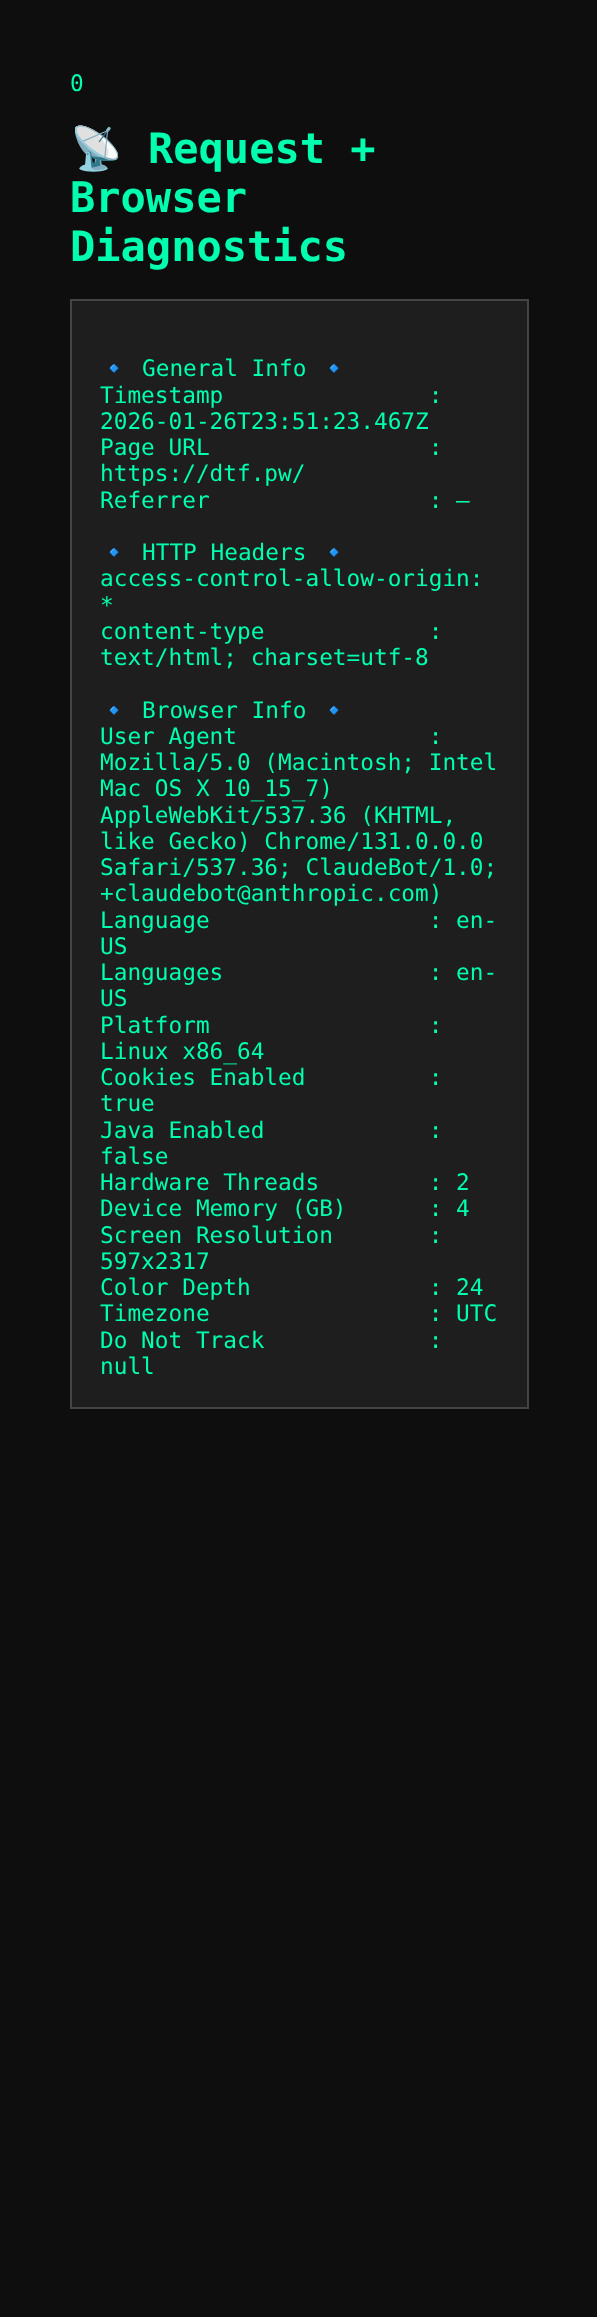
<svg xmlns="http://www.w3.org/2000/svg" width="597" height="2317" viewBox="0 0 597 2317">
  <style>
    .t1 { font: 22.75px DejaVu Sans Mono; fill: #00ffae; }
    .t2 { font: bold 42px Noto Color Emoji; fill: #00ffae; }
    .t3 { font: bold 42px DejaVu Sans Mono; fill: #00ffae; }
    .t4 { font: 22.75px Noto Color Emoji; fill: #00ffae; }
  </style>
  <rect width="100%" height="100%" fill="#0e0e0e"/>
  <text x="70" y="91" class="t1">0</text>
  <text x="70" y="163" class="t2">📡</text>
  <text x="148" y="163" class="t3">Request +</text>
  <text x="70" y="212" class="t3">Browser</text>
  <text x="70" y="261" class="t3">Diagnostics</text>
  <rect x="71" y="300" width="457" height="1108" fill="#1e1e1e" stroke="#444" stroke-width="2"/>
  <text x="100" y="376" class="t4">🔹</text>
  <text x="142" y="376" class="t1">General Info</text>
  <text x="320" y="376" class="t4">🔹</text>
  <text x="100" y="403" class="t1" xml:space="preserve">Timestamp               :</text>
  <text x="100" y="429" class="t1">2026-01-26T23:51:23.467Z</text>
  <text x="100" y="455" class="t1" xml:space="preserve">Page URL                :</text>
  <text x="100" y="481" class="t1">https://dtf.pw/</text>
  <text x="100" y="508" class="t1" xml:space="preserve">Referrer                : —</text>
  <text x="100" y="560" class="t4">🔹</text>
  <text x="142" y="560" class="t1">HTTP Headers</text>
  <text x="320" y="560" class="t4">🔹</text>
  <text x="100" y="586" class="t1">access-control-allow-origin:</text>
  <text x="100" y="613" class="t1">*</text>
  <text x="100" y="639" class="t1" xml:space="preserve">content-type            :</text>
  <text x="100" y="665" class="t1">text/html; charset=utf-8</text>
  <text x="100" y="718" class="t4">🔹</text>
  <text x="142" y="718" class="t1">Browser Info</text>
  <text x="320" y="718" class="t4">🔹</text>
  <text x="100" y="744" class="t1" xml:space="preserve">User Agent              :</text>
  <text x="100" y="770" class="t1">Mozilla/5.0 (Macintosh; Intel</text>
  <text x="100" y="796" class="t1">Mac OS X 10_15_7)</text>
  <text x="100" y="823" class="t1">AppleWebKit/537.36 (KHTML,</text>
  <text x="100" y="849" class="t1">like Gecko) Chrome/131.0.0.0</text>
  <text x="100" y="875" class="t1">Safari/537.36; ClaudeBot/1.0;</text>
  <text x="100" y="901" class="t1">+claudebot@anthropic.com)</text>
  <text x="100" y="928" class="t1" xml:space="preserve">Language                : en-</text>
  <text x="100" y="954" class="t1">US</text>
  <text x="100" y="980" class="t1" xml:space="preserve">Languages               : en-</text>
  <text x="100" y="1006" class="t1">US</text>
  <text x="100" y="1033" class="t1" xml:space="preserve">Platform                :</text>
  <text x="100" y="1059" class="t1">Linux x86_64</text>
  <text x="100" y="1085" class="t1" xml:space="preserve">Cookies Enabled         :</text>
  <text x="100" y="1111" class="t1">true</text>
  <text x="100" y="1138" class="t1" xml:space="preserve">Java Enabled            :</text>
  <text x="100" y="1164" class="t1">false</text>
  <text x="100" y="1190" class="t1" xml:space="preserve">Hardware Threads        : 2</text>
  <text x="100" y="1216" class="t1" xml:space="preserve">Device Memory (GB)      : 4</text>
  <text x="100" y="1243" class="t1" xml:space="preserve">Screen Resolution       :</text>
  <text x="100" y="1269" class="t1">597x2317</text>
  <text x="100" y="1295" class="t1" xml:space="preserve">Color Depth             : 24</text>
  <text x="100" y="1321" class="t1" xml:space="preserve">Timezone                : UTC</text>
  <text x="100" y="1348" class="t1" xml:space="preserve">Do Not Track            :</text>
  <text x="100" y="1374" class="t1">null</text>
</svg>
